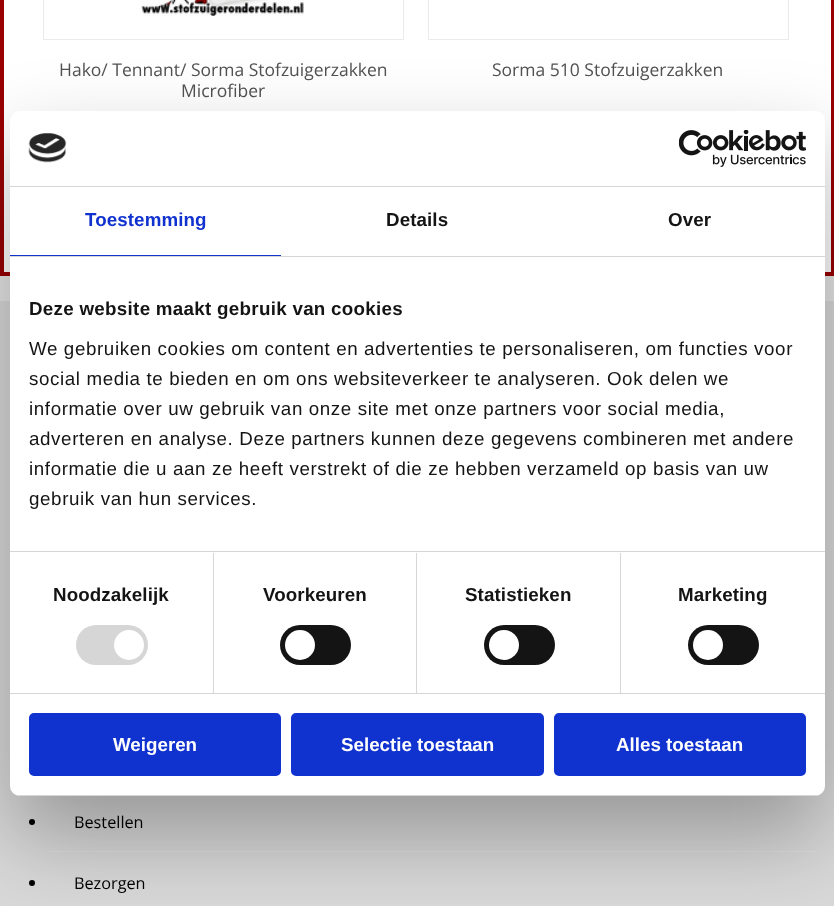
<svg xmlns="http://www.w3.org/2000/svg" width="834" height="906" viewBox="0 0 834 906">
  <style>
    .t1 { font: 17.5px Open Sans; fill: #525252; }
    .t2 { font: 16.25px Open Sans; fill: #000; }
    .t3 { font: bold 18.75px Liberation Sans; letter-spacing: 0.1px; fill: #1032cf; }
    .t4 { font: bold 18.75px Liberation Sans; letter-spacing: 0.1px; fill: #141414; }
    .t5 { font: bold 18.75px Liberation Sans; letter-spacing: 0.3px; fill: #141414; }
    .t6 { font: 18.75px Liberation Sans; letter-spacing: 0.62px; fill: #141414; }
    .t7 { font: bold 18.75px Liberation Sans; fill: #fff; }
  </style>
  <defs>
    <clipPath id="clip1"><rect x="10" y="111" width="815" height="685" rx="10"/></clipPath>
  </defs>
  <rect width="100%" height="100%" fill="#e6e6e6"/>
  <rect x="2" y="-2" width="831" height="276" fill="#fff" stroke="#900" stroke-width="4"/>
  <rect x="43.5" y="-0.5" width="360" height="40" fill="none" stroke="#ebebeb"/>
  <image x="141" y="0" width="163" height="16" href="images/1.png"/>
  <text x="59" y="76" class="t1">Hako/ Tennant/ Sorma Stofzuigerzakken</text>
  <text x="181" y="97" class="t1">Microfiber</text>
  <rect x="428.5" y="-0.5" width="360" height="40" fill="none" stroke="#ebebeb"/>
  <text x="492" y="76" class="t1">Sorma 510 Stofzuigerzakken</text>
  <rect x="0" y="301" width="834" height="605" fill="#d9d9d9"/>
  <rect x="49" y="851" width="767" height="1" fill="#dfdfdf"/>
  <circle cx="32" cy="822" r="3" fill="#000"/>
  <text x="74" y="828" class="t2">Bestellen</text>
  <circle cx="32" cy="883" r="3" fill="#000"/>
  <text x="74" y="889" class="t2">Bezorgen</text>
  <rect x="10" y="151" width="815" height="685" rx="10" fill="#0000004d" filter="blur(42.5px)"/>
  <rect x="10" y="111" width="815" height="685" rx="10" fill="#fff"/>
  <rect x="10" y="186" width="815" height="1" fill="#d6d6d6"/>
  <image x="28" y="133" width="39" height="30" href="images/2.png"/>
  <image x="679" y="130" width="127" height="37" href="images/3.png"/>
  <rect x="10" y="256" width="815" height="1" fill="#d6d6d6"/>
  <rect x="10" y="255" width="271" height="1" fill="#1032cf"/>
  <text x="85" y="226" class="t3">Toestemming</text>
  <text x="386" y="226" class="t4">Details</text>
  <text x="668" y="226" class="t4">Over</text>
  <rect x="10" y="551" width="815" height="1" fill="#d6d6d6"/>
  <text x="29" y="315" class="t5">Deze website maakt gebruik van cookies</text>
  <text x="29" y="355" class="t6">We gebruiken cookies om content en advertenties te personaliseren, om functies voor</text>
  <text x="29" y="385" class="t6">social media te bieden en om ons websiteverkeer te analyseren. Ook delen we</text>
  <text x="29" y="415" class="t6">informatie over uw gebruik van onze site met onze partners voor social media,</text>
  <text x="29" y="445" class="t6">adverteren en analyse. Deze partners kunnen deze gegevens combineren met andere</text>
  <text x="29" y="475" class="t6">informatie die u aan ze heeft verstrekt of die ze hebben verzameld op basis van uw</text>
  <text x="29" y="505" class="t6">gebruik van hun services.</text>
  <rect x="10" y="693" width="815" height="1" fill="#d6d6d6"/>
  <rect x="213" y="553" width="1" height="140" fill="#d6d6d6"/>
  <text x="53" y="601" class="t4">Noodzakelijk</text>
  <rect x="76" y="625" width="72" height="40" rx="20" fill="#d6d6d6"/>
  <circle cx="129" cy="645" r="15" fill="#fff"/>
  <rect x="416" y="553" width="1" height="140" fill="#d6d6d6"/>
  <text x="263" y="601" class="t4">Voorkeuren</text>
  <rect x="280" y="625" width="71" height="40" rx="20" fill="#141414"/>
  <circle cx="300" cy="645" r="15" fill="#fff"/>
  <rect x="620" y="553" width="1" height="140" fill="#d6d6d6"/>
  <text x="465" y="601" class="t4">Statistieken</text>
  <rect x="484" y="625" width="71" height="40" rx="20" fill="#141414"/>
  <circle cx="504" cy="645" r="15" fill="#fff"/>
  <text x="678" y="601" class="t4">Marketing</text>
  <rect x="688" y="625" width="71" height="40" rx="20" fill="#141414"/>
  <circle cx="708" cy="645" r="15" fill="#fff"/>
  <g clip-path="url(#clip1)">
    <rect x="10" y="795" width="815" height="1" fill="#d6d6d6"/>
  </g>
  <rect x="30.5" y="714.5" width="249" height="60" rx="3.5" fill="#1032cf" stroke="#1032cf" stroke-width="3"/>
  <text x="113" y="751" class="t7">Weigeren</text>
  <rect x="292.5" y="714.5" width="250" height="60" rx="3.5" fill="#1032cf" stroke="#1032cf" stroke-width="3"/>
  <text x="341" y="751" class="t7">Selectie toestaan</text>
  <rect x="555.5" y="714.5" width="249" height="60" rx="3.5" fill="#1032cf" stroke="#1032cf" stroke-width="3"/>
  <text x="616" y="751" class="t7">Alles toestaan</text>
</svg>
